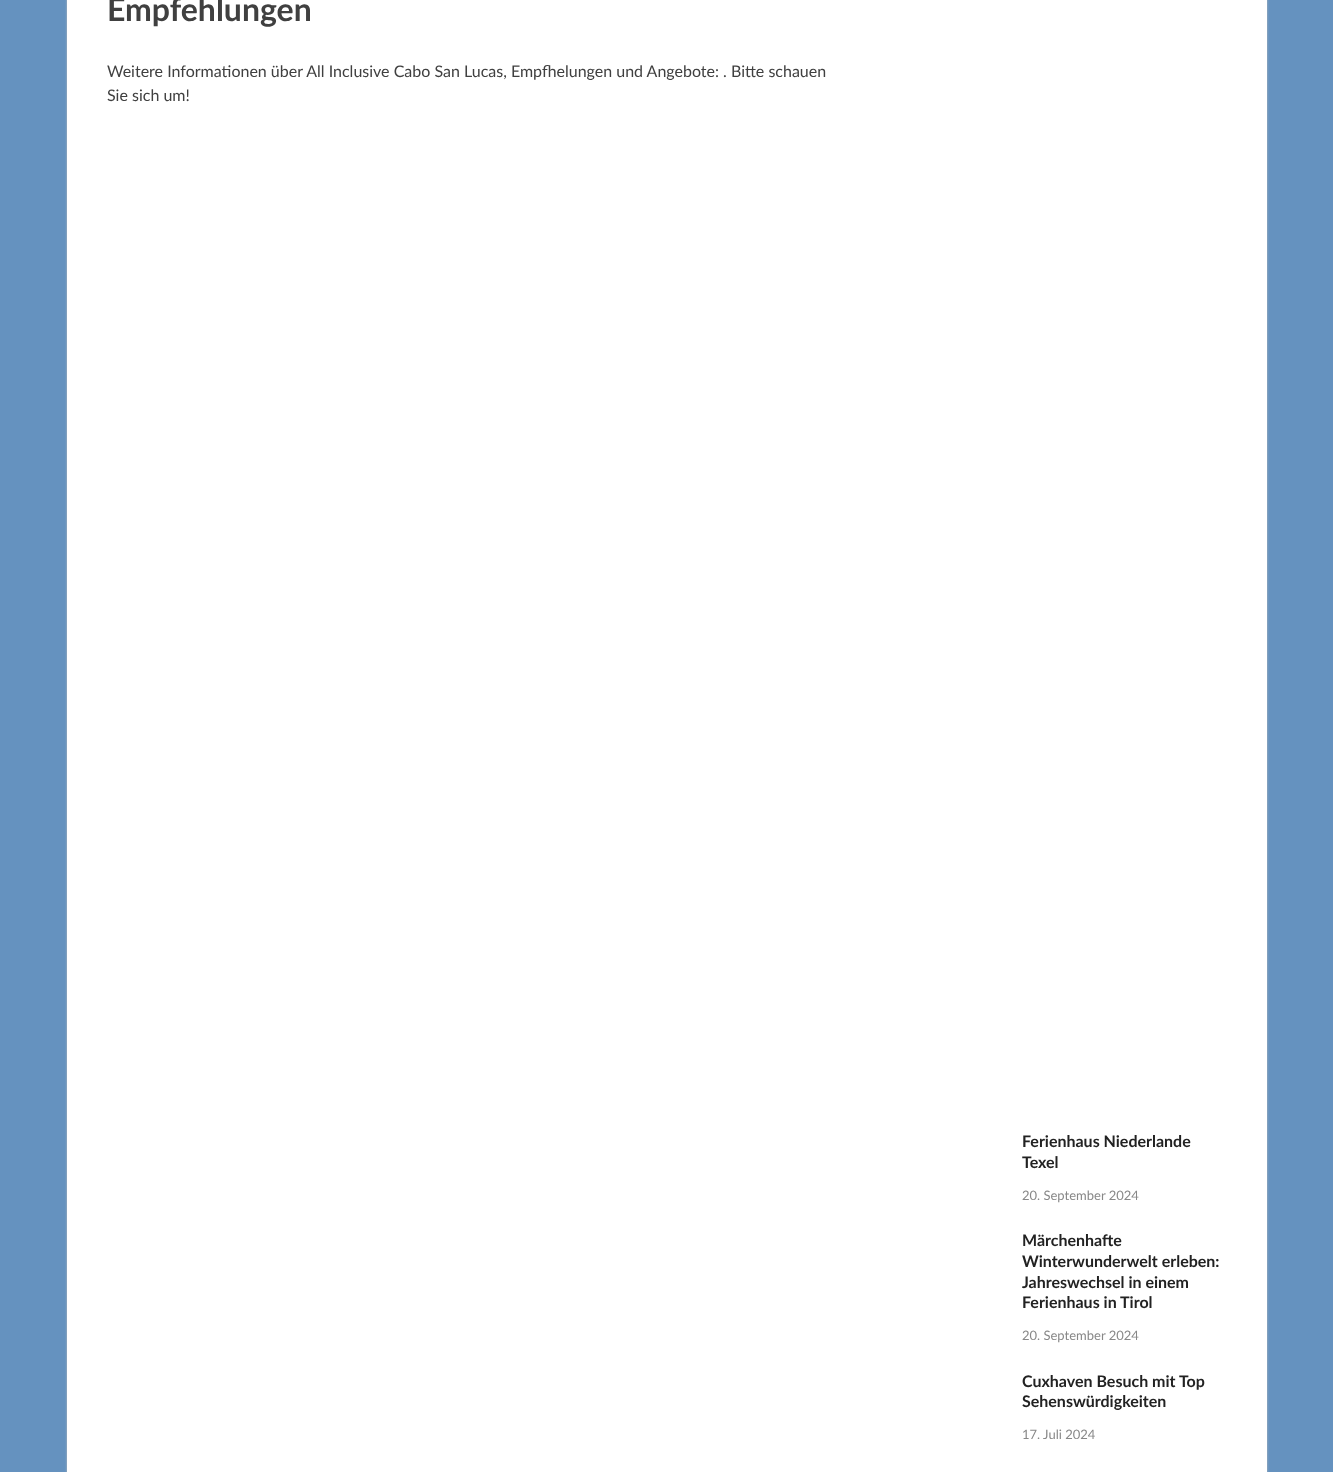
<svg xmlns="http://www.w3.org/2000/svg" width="1333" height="1472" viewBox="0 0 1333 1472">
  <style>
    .t1 { font: bold 32px Lato; fill: #404040; }
    .t2 { font: 16px Lato; fill: #404040; }
    .t3 { font: bold 16px Lato; fill: #222; }
    .t4 { font: 13px Lato; fill: #888; }
  </style>
  <rect width="100%" height="100%" fill="#6592bf"/>
  <rect x="67" y="-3" width="1200" height="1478" fill="#bbb" filter="blur(1px)"/>
  <rect x="67" y="0" width="1200" height="1472" fill="#fff"/>
  <text x="107" y="21" class="t1">Empfehlungen</text>
  <text x="107" y="77" class="t2">Weitere Informationen über All Inclusive Cabo San Lucas, Empfhelungen und Angebote: . Bitte schauen</text>
  <text x="107" y="101" class="t2">Sie sich um!</text>
  <text x="1022" y="1147" class="t3">Ferienhaus Niederlande</text>
  <text x="1022" y="1168" class="t3">Texel</text>
  <text x="1022" y="1200" class="t4">20. September 2024</text>
  <text x="1022" y="1246" class="t3">Märchenhafte</text>
  <text x="1022" y="1267" class="t3">Winterwunderwelt erleben:</text>
  <text x="1022" y="1288" class="t3">Jahreswechsel in einem</text>
  <text x="1022" y="1308" class="t3">Ferienhaus in Tirol</text>
  <text x="1022" y="1340" class="t4">20. September 2024</text>
  <text x="1022" y="1387" class="t3">Cuxhaven Besuch mit Top</text>
  <text x="1022" y="1407" class="t3">Sehenswürdigkeiten</text>
  <text x="1022" y="1439" class="t4">17. Juli 2024</text>
</svg>
